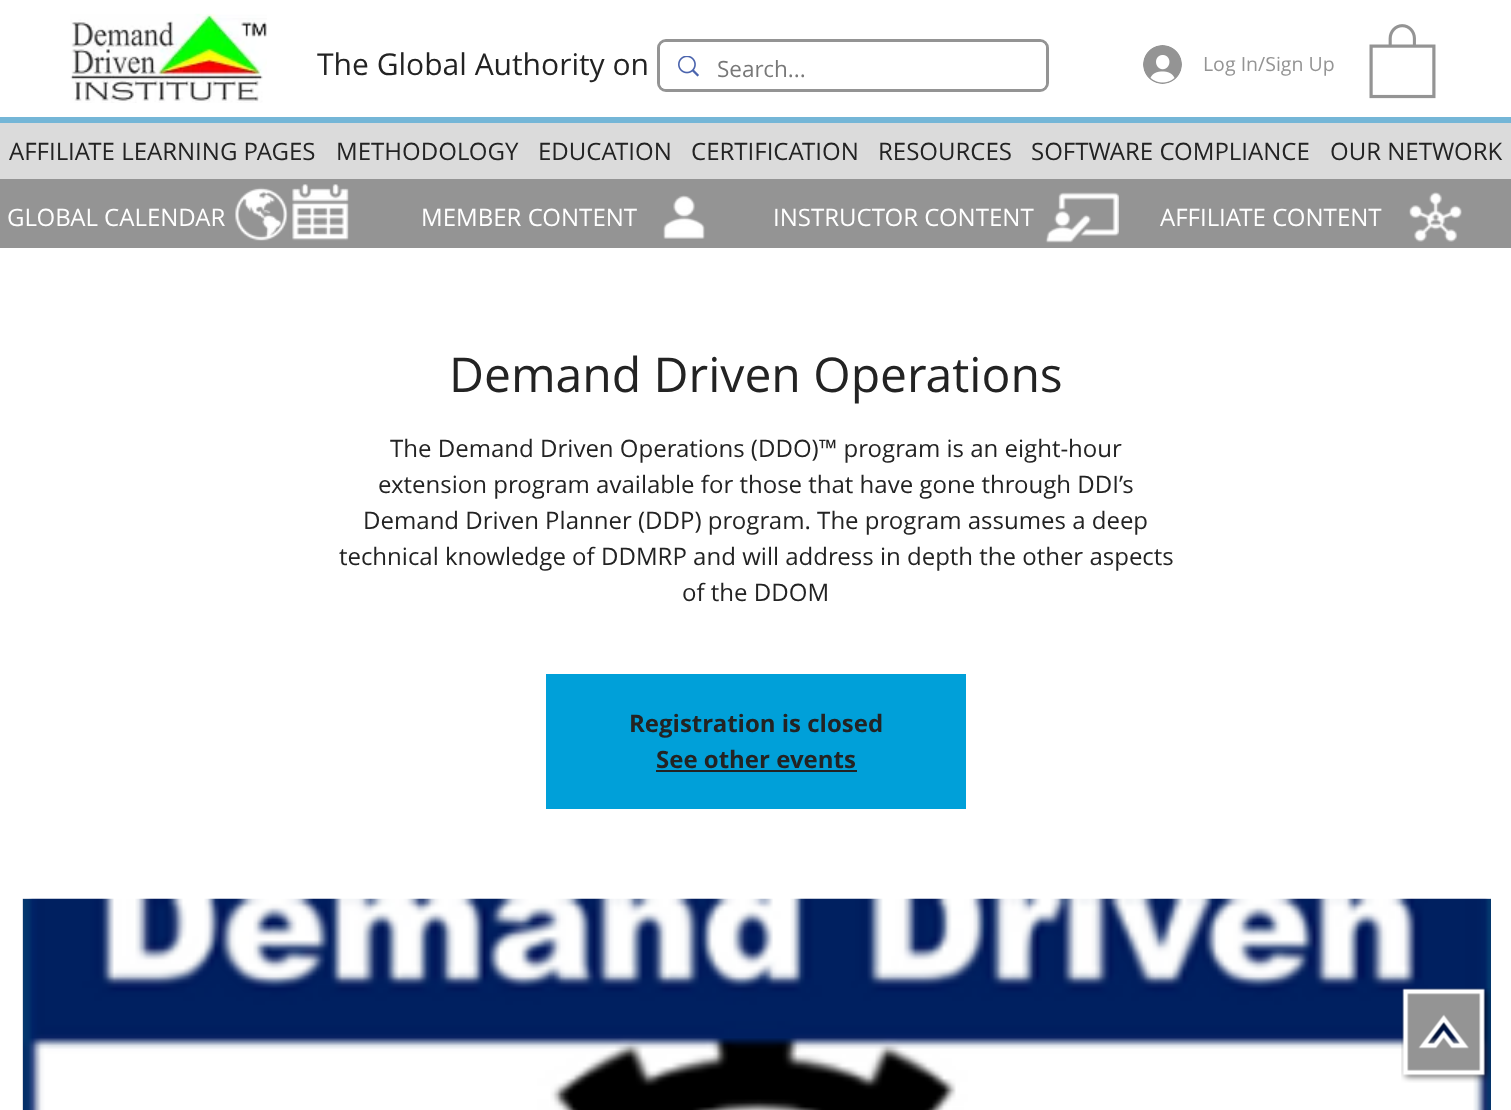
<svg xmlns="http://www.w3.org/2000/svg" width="1511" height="1110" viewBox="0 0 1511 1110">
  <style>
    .t1 { font: 30px Open Sans; fill: #232323; }
    .t2 { font: 22.5px Open Sans; fill: #787878; }
    .t3 { font: 19.5px Open Sans; fill: #949494; }
    .t4 { font: 24px Open Sans; fill: #232323; }
    .t5 { font: 24px Open Sans; fill: #fff; }
    .t6 { font: 48px Open Sans; fill: #232323; }
    .t7 { font: bold 24px Open Sans; fill: #232323; }
  </style>
  <rect width="100%" height="100%" fill="#74b6d7"/>
  <rect x="0" y="0" width="1511" height="117" fill="#fff"/>
  <image x="70" y="13" width="197" height="90" href="images/1.png"/>
  <text x="317" y="75" class="t1">The Global Authority on</text>
  <rect x="658.5" y="40.5" width="389" height="50" rx="7.5" fill="none" stroke="#949494" stroke-width="3"/>
  <rect x="660" y="42" width="386" height="47" rx="6" fill="#fff"/>
  <image x="678" y="56" width="21" height="21" href="images/2.png"/>
  <text x="717" y="77" class="t2">Search...</text>
  <image x="1143" y="45" width="39" height="39" href="images/3.png"/>
  <text x="1203" y="71" class="t3">Log In/Sign Up</text>
  <image x="1369" y="24" width="67" height="75" href="images/4.png"/>
  <rect x="0" y="123" width="1511" height="56" fill="#dbdbdb"/>
  <text x="9" y="160" class="t4">AFFILIATE LEARNING PAGES</text>
  <text x="336" y="160" class="t4">METHODOLOGY</text>
  <text x="538" y="160" class="t4">EDUCATION</text>
  <text x="691" y="160" class="t4">CERTIFICATION</text>
  <text x="878" y="160" class="t4">RESOURCES</text>
  <text x="1031" y="160" class="t4">SOFTWARE COMPLIANCE</text>
  <text x="1330" y="160" class="t4">OUR NETWORK</text>
  <rect x="0" y="179" width="1511" height="69" fill="#949494"/>
  <text x="7" y="226" class="t5">GLOBAL CALENDAR</text>
  <image x="235" y="184" width="114" height="57" href="images/5.png"/>
  <text x="421" y="226" class="t5">MEMBER CONTENT</text>
  <image x="663" y="195" width="42" height="44" href="images/6.png"/>
  <text x="773" y="226" class="t5">INSTRUCTOR CONTENT</text>
  <image x="1045" y="192" width="74" height="51" href="images/7.png"/>
  <text x="1160" y="226" class="t5">AFFILIATE CONTENT</text>
  <image x="1409" y="192" width="53" height="50" href="images/8.png"/>
  <rect x="0" y="248" width="1511" height="862" fill="#fff"/>
  <text x="449" y="392" class="t6">Demand Driven Operations</text>
  <text x="390" y="457" class="t4">The Demand Driven Operations (DDO)™ program is an eight-hour</text>
  <text x="378" y="493" class="t4">extension program available for those that have gone through DDI’s</text>
  <text x="363" y="529" class="t4">Demand Driven Planner (DDP) program. The program assumes a deep</text>
  <text x="339" y="565" class="t4">technical knowledge of DDMRP and will address in depth the other aspects</text>
  <text x="682" y="601" class="t4">of the DDOM</text>
  <rect x="546" y="674" width="420" height="135" fill="#00a0d9"/>
  <text x="629" y="732" class="t7">Registration is closed</text>
  <text x="656" y="768" class="t7">See other events</text>
  <rect x="656" y="770" width="201" height="2" fill="#232323"/>
  <rect x="23" y="899" width="1468" height="211" fill="#0a5a82"/>
  <image x="22" y="898" width="1469" height="212" href="images/9.png"/>
  <image x="1401" y="988" width="90" height="95" href="images/10.png"/>
</svg>
